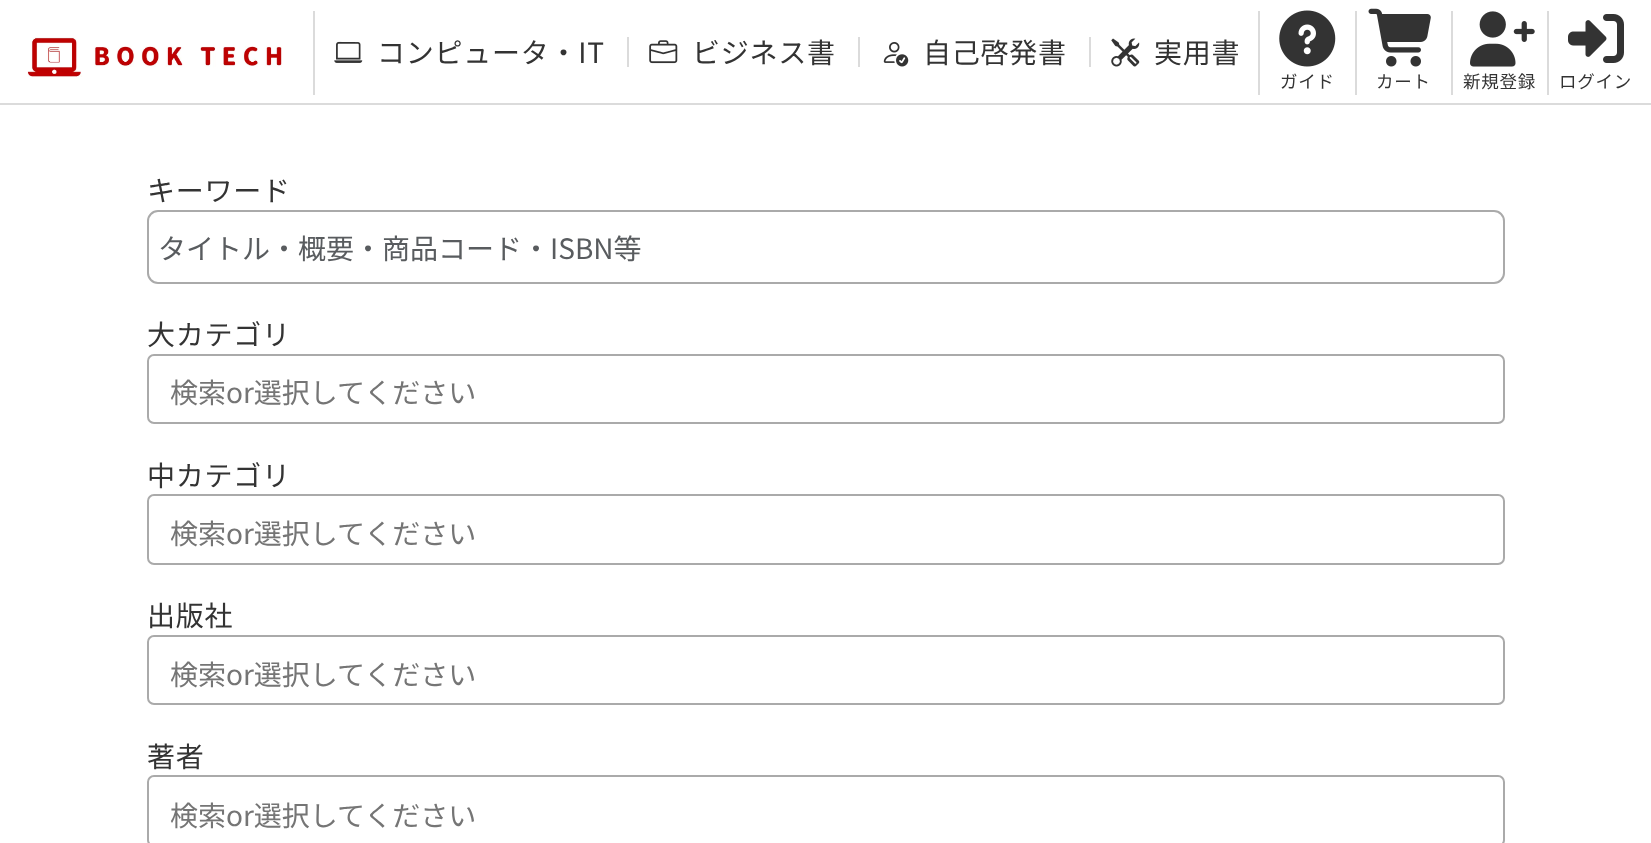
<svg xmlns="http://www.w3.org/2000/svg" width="1651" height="843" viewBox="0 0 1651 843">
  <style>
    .t1 { font: 28px Noto Sans JP; letter-spacing: 0.75px; fill: #333; }
    .t2 { font: 17.5px Noto Sans JP; letter-spacing: 0.75px; fill: #333; }
    .t3 { font: 28px Noto Sans JP; fill: #595c5f; }
    .t4 { font: 28px Noto Sans JP; fill: #757575; }
  </style>
  <rect width="100%" height="100%" fill="#fff"/>
  <rect x="0" y="103" width="1651" height="2" fill="#dbdbdb"/>
  <rect x="313" y="11" width="2" height="84" fill="#dbdbdb"/>
  <image x="27" y="37" width="255" height="40" href="images/1.png"/>
  <image x="334" y="41" width="29" height="22" href="images/2.png"/>
  <text x="377" y="63" class="t1">コンピュータ・IT</text>
  <rect x="627" y="37" width="2" height="30" fill="#dbdbdb"/>
  <image x="649" y="40" width="29" height="24" href="images/3.png"/>
  <text x="692" y="63" class="t1">ビジネス書</text>
  <rect x="858" y="37" width="2" height="30" fill="#dbdbdb"/>
  <image x="883" y="42" width="26" height="25" href="images/4.png"/>
  <text x="923" y="63" class="t1">自己啓発書</text>
  <rect x="1089" y="37" width="2" height="30" fill="#dbdbdb"/>
  <image x="1111" y="38" width="29" height="29" href="images/5.png"/>
  <text x="1154" y="63" class="t1">実用書</text>
  <rect x="1258" y="11" width="2" height="84" fill="#dbdbdb"/>
  <image x="1279" y="10" width="57" height="57" href="images/6.png"/>
  <text x="1280" y="88" class="t2">ガイド</text>
  <rect x="1355" y="11" width="2" height="84" fill="#dbdbdb"/>
  <image x="1368" y="8" width="63" height="59" href="images/7.png"/>
  <text x="1376" y="88" class="t2">カート</text>
  <rect x="1451" y="11" width="2" height="84" fill="#dbdbdb"/>
  <image x="1470" y="11" width="65" height="56" href="images/8.png"/>
  <text x="1463" y="88" class="t2">新規登録</text>
  <rect x="1547" y="11" width="2" height="84" fill="#dbdbdb"/>
  <image x="1568" y="14" width="56" height="49" href="images/9.png"/>
  <text x="1559" y="88" class="t2">ログイン</text>
  <text x="147" y="201" class="t1">キーワード</text>
  <rect x="148" y="211" width="1356" height="72" rx="10" fill="none" stroke="#aaa" stroke-width="2"/>
  <text x="158" y="259" class="t3">タイトル・概要・商品コード・ISBN等</text>
  <text x="147" y="345" class="t1">大カテゴリ</text>
  <rect x="148" y="355" width="1356" height="68" rx="6" fill="none" stroke="#aaa" stroke-width="2"/>
  <text x="170" y="403" class="t4">検索or選択してください</text>
  <text x="147" y="486" class="t1">中カテゴリ</text>
  <rect x="148" y="495" width="1356" height="69" rx="6" fill="none" stroke="#aaa" stroke-width="2"/>
  <text x="170" y="544" class="t4">検索or選択してください</text>
  <text x="147" y="626" class="t1">出版社</text>
  <rect x="148" y="636" width="1356" height="68" rx="6" fill="none" stroke="#aaa" stroke-width="2"/>
  <text x="170" y="685" class="t4">検索or選択してください</text>
  <text x="147" y="767" class="t1">著者</text>
  <rect x="148" y="776" width="1356" height="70" rx="6" fill="none" stroke="#aaa" stroke-width="2"/>
  <text x="170" y="826" class="t4">検索or選択してください</text>
</svg>
